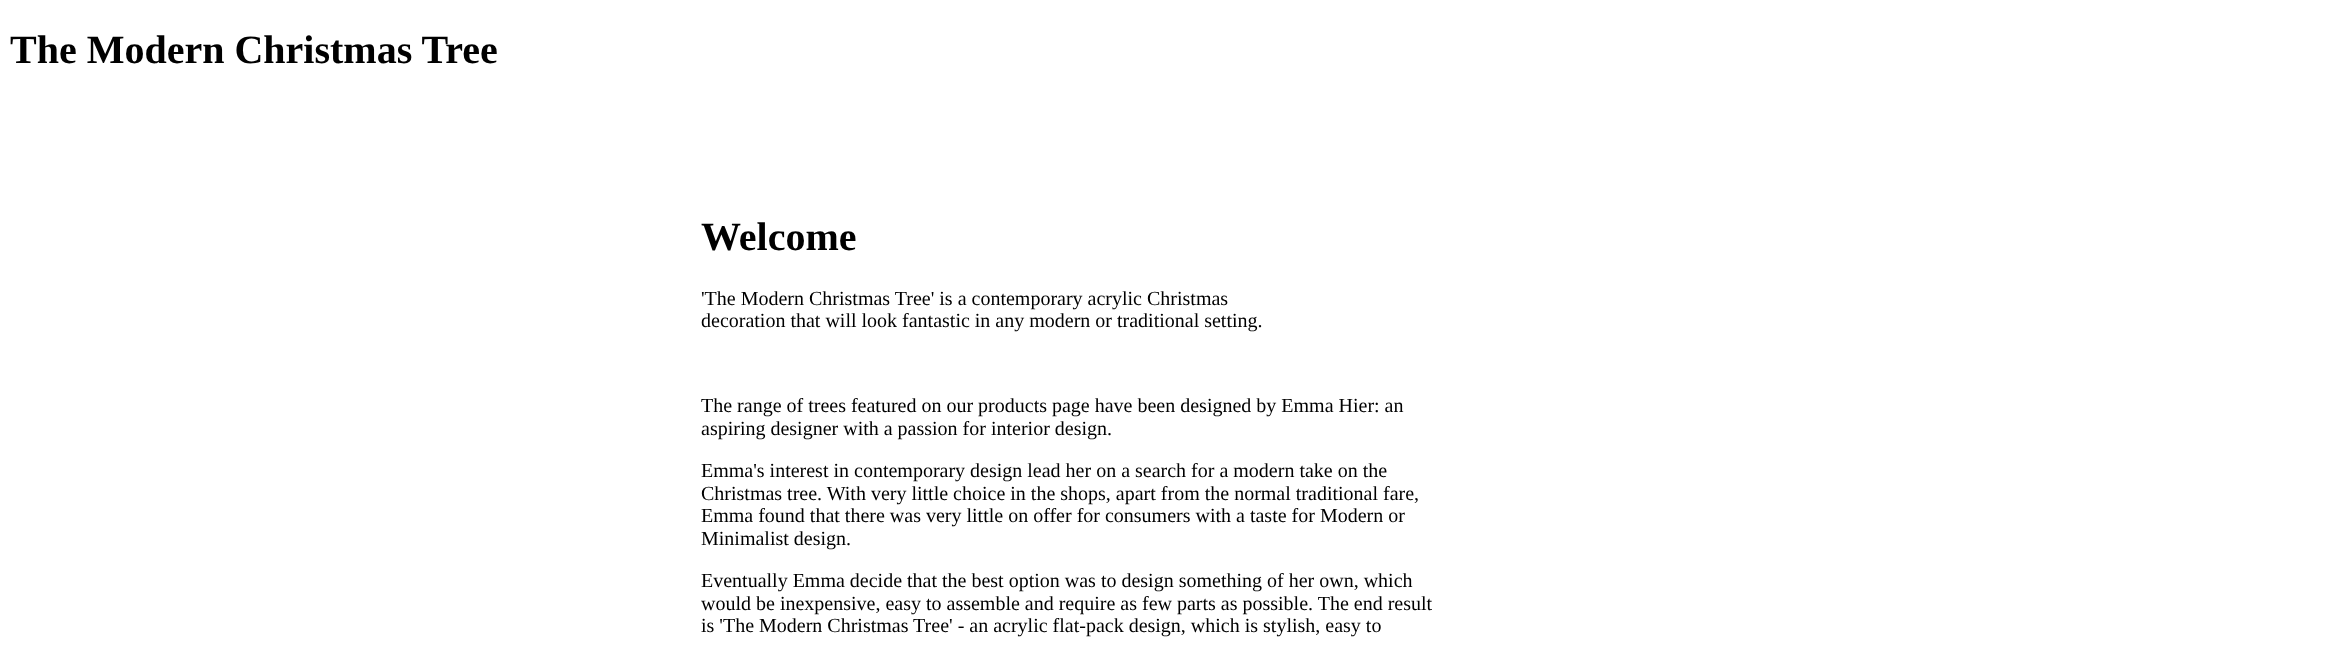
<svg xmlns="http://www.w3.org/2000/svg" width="2340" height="648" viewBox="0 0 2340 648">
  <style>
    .t1 { font: bold 40px Liberation Serif; fill: #000; }
    .t2 { font: 20px Liberation Serif; fill: #000; }
  </style>
  <rect width="100%" height="100%" fill="#fff"/>
  <text x="10" y="63" class="t1">The Modern Christmas Tree</text>
  <text x="701" y="250" class="t1">Welcome</text>
  <text x="701" y="305" class="t2">'The Modern Christmas Tree' is a contemporary acrylic Christmas</text>
  <text x="701" y="327" class="t2">decoration that will look fantastic in any modern or traditional setting.</text>
  <text x="701" y="412" class="t2">The range of trees featured on our products page have been designed by Emma Hier: an</text>
  <text x="701" y="435" class="t2">aspiring designer with a passion for interior design.</text>
  <text x="701" y="477" class="t2">Emma's interest in contemporary design lead her on a search for a modern take on the</text>
  <text x="701" y="500" class="t2">Christmas tree. With very little choice in the shops, apart from the normal traditional fare,</text>
  <text x="701" y="522" class="t2">Emma found that there was very little on offer for consumers with a taste for Modern or</text>
  <text x="701" y="545" class="t2">Minimalist design.</text>
  <text x="701" y="587" class="t2">Eventually Emma decide that the best option was to design something of her own, which</text>
  <text x="701" y="610" class="t2">would be inexpensive, easy to assemble and require as few parts as possible. The end result</text>
  <text x="701" y="632" class="t2">is 'The Modern Christmas Tree' - an acrylic flat-pack design, which is stylish, easy to</text>
</svg>
